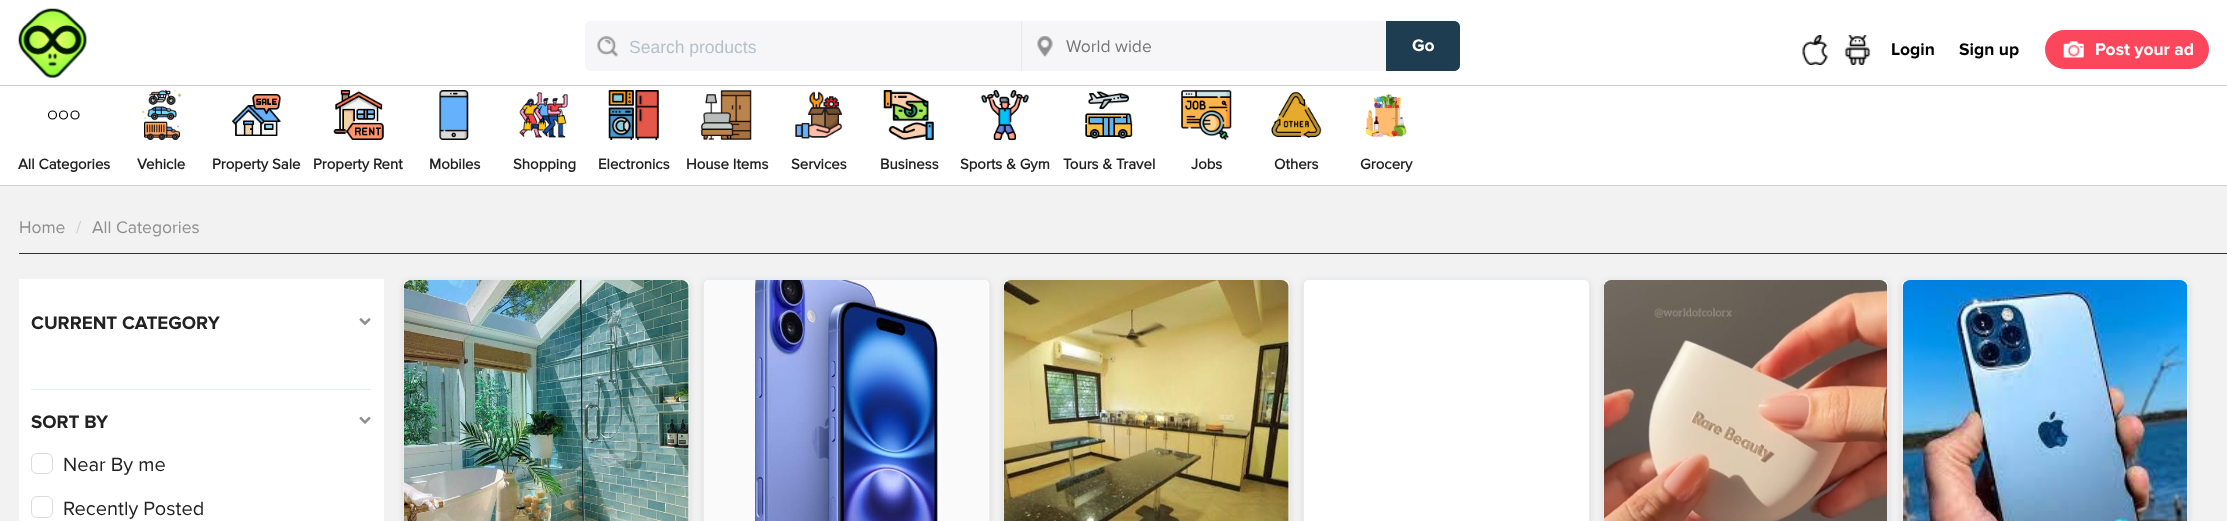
<svg xmlns="http://www.w3.org/2000/svg" width="2227" height="521" viewBox="0 0 2227 521">
  <style>
    .t1 { font: 17.5px Liberation Sans; fill: #b4c1cc; }
    .t2 { font: 17.5px Proxima Nova; fill: #757575; }
    .t3 { font: bold 17.5px Proxima Nova; fill: #fff; }
    .t4 { font: bold 17.5px Proxima Nova; fill: #000; }
    .t5 { font: bold 15px 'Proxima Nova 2'; fill: #222; }
    .t6 { font: 17.5px Proxima Nova; fill: #8e8e8e; }
    .t7 { font: 17.5px Proxima Nova; fill: #ccc; }
    .t8 { font: bold 18.75px Proxima Nova; fill: #222; }
    .t9 { font: 20px Proxima Nova; fill: #222; }
  </style>
  <rect width="100%" height="100%" fill="#f2f2f2"/>
  <rect x="0" y="0" width="2227" height="185" fill="#fff"/>
  <rect x="0" y="85" width="2227" height="1" fill="#cdcdcd"/>
  <image x="18" y="8" width="69" height="70" href="images/1.png"/>
  <path d="M591 21H1023V71H591C587.5 71 585 68.5 585 65V27C585 23.5 587.5 21 591 21Z" fill="#f6f5f7"/>
  <image x="597" y="36" width="21" height="21" href="images/2.png"/>
  <rect x="1021" y="21" width="1" height="50" fill="#e9e9e9"/>
  <text x="629" y="53" class="t1">Search products</text>
  <rect x="1023" y="21" width="363" height="50" fill="#f6f5f7"/>
  <image x="1037" y="36" width="16" height="21" href="images/3.png"/>
  <text x="1066" y="52" class="t2">World wide</text>
  <path d="M1386 21H1454C1457.5 21 1460 23.5 1460 27V65C1460 68.5 1457.5 71 1454 71H1386Z" fill="#1f3d51"/>
  <text x="1412" y="51" class="t3">Go</text>
  <image x="1802" y="35" width="26" height="30" href="images/4.png"/>
  <image x="1844" y="35" width="27" height="30" href="images/5.png"/>
  <text x="1891" y="55" class="t4">Login</text>
  <text x="1959" y="55" class="t4">Sign up</text>
  <rect x="2045" y="30" width="164" height="39" rx="19.5" fill="#fb465b"/>
  <image x="2063" y="41" width="21" height="17" href="images/6.png"/>
  <text x="2095" y="55" class="t3">Post your ad</text>
  <rect x="0" y="185" width="2227" height="1" fill="#cdcdcd"/>
  <circle cx="52.5" cy="115" r="4" fill="none" stroke="#000" stroke-width="1.2"/>
  <circle cx="63.5" cy="115" r="4" fill="none" stroke="#000" stroke-width="1.2"/>
  <circle cx="75" cy="115" r="4" fill="none" stroke="#000" stroke-width="1.2"/>
  <text x="18" y="169" class="t5">All Categories</text>
  <image x="141" y="90" width="41" height="50" href="images/7.png"/>
  <text x="137" y="169" class="t5">Vehicle</text>
  <image x="232" y="94" width="49" height="42" href="images/8.png"/>
  <text x="212" y="169" class="t5">Property Sale</text>
  <image x="333" y="90" width="51" height="50" href="images/9.png"/>
  <text x="313" y="169" class="t5">Property Rent</text>
  <image x="439" y="90" width="30" height="50" href="images/10.png"/>
  <text x="429" y="169" class="t5">Mobiles</text>
  <image x="519" y="92" width="49" height="46" href="images/11.png"/>
  <text x="513" y="169" class="t5">Shopping</text>
  <image x="608" y="90" width="51" height="50" href="images/12.png"/>
  <text x="598" y="169" class="t5">Electronics</text>
  <image x="701" y="90" width="51" height="50" href="images/13.png"/>
  <text x="686" y="169" class="t5">House Items</text>
  <image x="795" y="91" width="48" height="48" href="images/14.png"/>
  <text x="791" y="169" class="t5">Services</text>
  <image x="883" y="90" width="51" height="50" href="images/15.png"/>
  <text x="880" y="169" class="t5">Business</text>
  <image x="980" y="90" width="50" height="50" href="images/16.png"/>
  <text x="960" y="169" class="t5">Sports &amp; Gym</text>
  <image x="1085" y="91" width="48" height="48" href="images/17.png"/>
  <text x="1063" y="169" class="t5">Tours &amp; Travel</text>
  <image x="1181" y="90" width="51" height="50" href="images/18.png"/>
  <text x="1191" y="169" class="t5">Jobs</text>
  <image x="1271" y="91" width="51" height="48" href="images/19.png"/>
  <text x="1274" y="169" class="t5">Others</text>
  <image x="1365" y="94" width="42" height="44" href="images/20.png"/>
  <text x="1360" y="169" class="t5">Grocery</text>
  <text x="19" y="233" class="t6">Home</text>
  <text x="76" y="233" class="t7">/</text>
  <text x="92" y="233" class="t6">All Categories</text>
  <rect x="19" y="253" width="2208" height="1" fill="#313030"/>
  <rect x="19" y="279" width="365" height="242" fill="#fff"/>
  <text x="31" y="329" class="t8">CURRENT CATEGORY</text>
  <image x="359" y="318" width="12" height="8" href="images/21.png"/>
  <rect x="31" y="389" width="340" height="1" fill="#e7edf2"/>
  <text x="31" y="428" class="t8">SORT BY</text>
  <image x="359" y="416" width="12" height="8" href="images/22.png"/>
  <rect x="31.5" y="453.5" width="21" height="20" rx="5.5" fill="none" stroke="#dbdbdb"/>
  <text x="63" y="471" class="t9">Near By me</text>
  <rect x="31.5" y="496.5" width="21" height="21" rx="5.5" fill="none" stroke="#dbdbdb"/>
  <text x="63" y="515" class="t9">Recently Posted</text>
  <rect x="403" y="281" width="287" height="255" rx="6" fill="#0000001a" filter="blur(3px)"/>
  <rect x="403.5" y="279.5" width="286" height="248" rx="5.5" fill="none" stroke="#e7edf2"/>
  <path d="M409 280H684C687 280 689 282 689 285V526H404V285C404 282 406 280 409 280Z" fill="#fff"/>
  <image x="404" y="280" width="285" height="241" href="images/23.png"/>
  <rect x="703" y="281" width="287" height="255" rx="6" fill="#0000001a" filter="blur(3px)"/>
  <rect x="703.5" y="279.5" width="286" height="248" rx="5.5" fill="none" stroke="#e7edf2"/>
  <path d="M709 280H984C987 280 989 282 989 285V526H704V285C704 282 706 280 709 280Z" fill="#fff"/>
  <image x="704" y="280" width="284" height="241" href="images/24.png"/>
  <rect x="1003" y="281" width="287" height="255" rx="6" fill="#0000001a" filter="blur(3px)"/>
  <rect x="1003.5" y="279.5" width="286" height="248" rx="5.5" fill="none" stroke="#e7edf2"/>
  <path d="M1009 280H1284C1287 280 1289 282 1289 285V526H1004V285C1004 282 1006 280 1009 280Z" fill="#fff"/>
  <image x="1004" y="280" width="285" height="241" href="images/25.png"/>
  <rect x="1303" y="281" width="287" height="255" rx="6" fill="#0000001a" filter="blur(3px)"/>
  <rect x="1303.5" y="279.5" width="286" height="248" rx="5.5" fill="none" stroke="#e7edf2"/>
  <path d="M1309 280H1584C1587 280 1589 282 1589 285V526H1304V285C1304 282 1306 280 1309 280Z" fill="#fff"/>
  <rect x="1603" y="281" width="286" height="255" rx="6" fill="#0000001a" filter="blur(3px)"/>
  <rect x="1603.5" y="279.5" width="285" height="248" rx="5.5" fill="none" stroke="#e7edf2"/>
  <path d="M1609 280H1883C1886 280 1888 282 1888 285V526H1604V285C1604 282 1606 280 1609 280Z" fill="#fff"/>
  <image x="1604" y="280" width="284" height="241" href="images/26.png"/>
  <rect x="1901" y="281" width="288" height="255" rx="6" fill="#0000001a" filter="blur(3px)"/>
  <rect x="1901.5" y="279.5" width="287" height="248" rx="5.5" fill="#fff" stroke="#e7edf2"/>
  <path d="M1908 280H2183C2186 280 2188 282 2188 285V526H1903V285C1903 282 1905 280 1908 280Z" fill="#fff"/>
  <image x="1902" y="280" width="286" height="241" href="images/27.png"/>
</svg>
